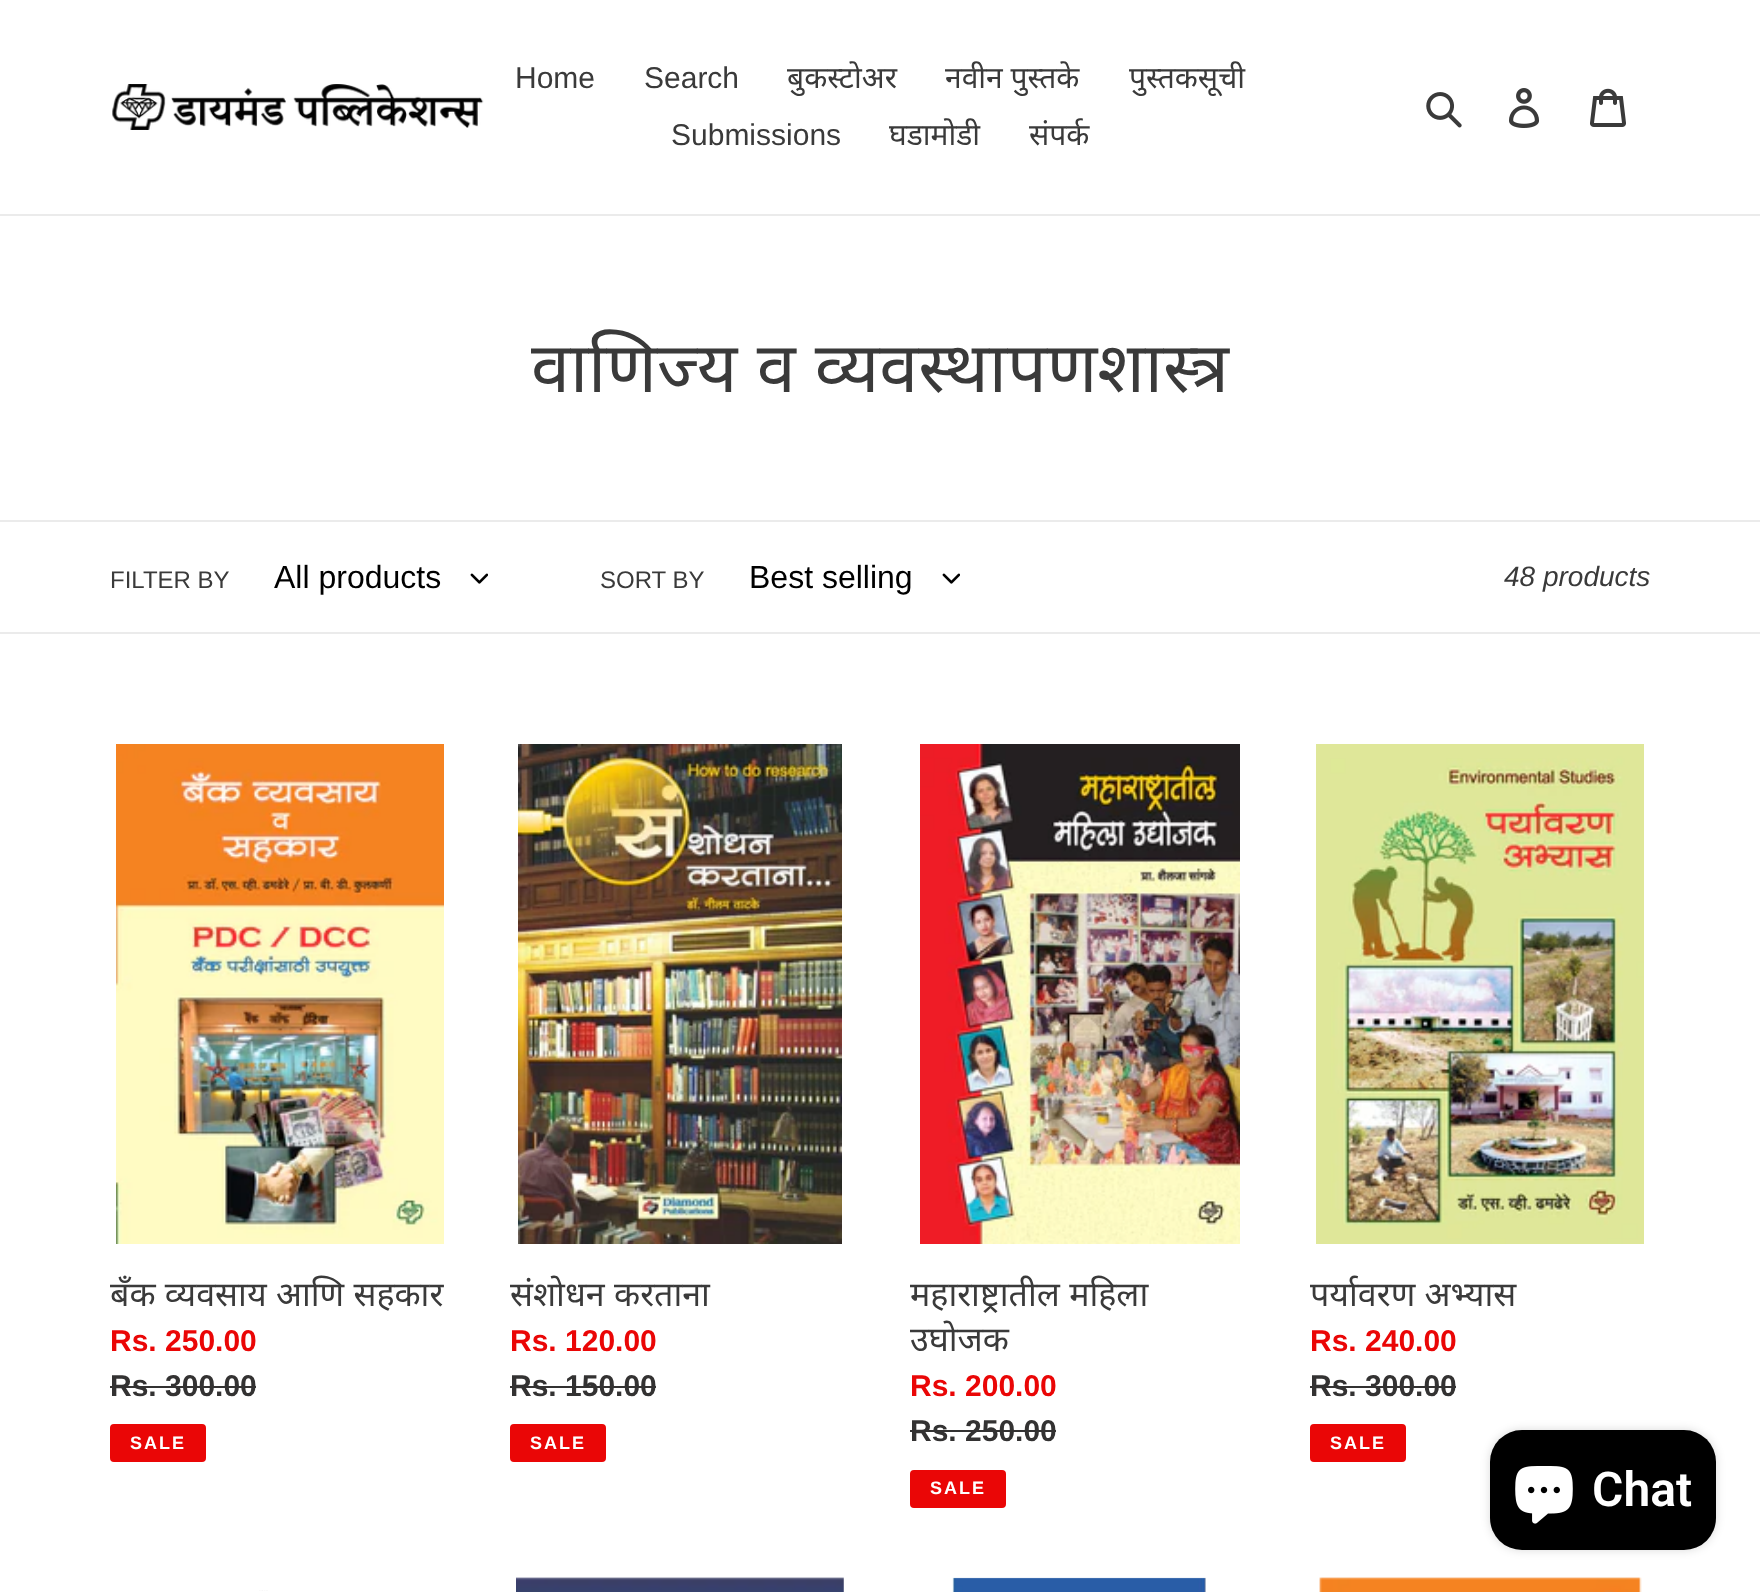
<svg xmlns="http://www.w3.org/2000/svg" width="1760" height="1592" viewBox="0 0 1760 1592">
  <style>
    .t1 { font: 30px Liberation Sans; fill: #3a3a3a; }
    .t2 { font: 30px Noto Sans; fill: #3a3a3a; }
    .t3 { font: 70px Noto Sans; fill: #3a3a3a; }
    .t4 { font: 24px Liberation Sans; fill: #3a3a3a; }
    .t5 { font: 32px Liberation Sans; fill: #000; }
    .t6 { font: italic 28px Liberation Sans; fill: #3a3a3a; }
    .t7 { font: 34px Noto Sans; fill: #3a3a3a; }
    .t8 { font: bold 30px Liberation Sans; fill: #ea0606; }
    .t9 { font: bold 30px Liberation Sans; fill: #333232; }
    .t10 { font: bold 18px Liberation Sans; letter-spacing: 2px; fill: #fff; }
    .t11 { font: 600 48px Roboto; fill: #fff; }
  </style>
  <rect width="100%" height="100%" fill="#fff"/>
  <rect x="0" y="214" width="1760" height="2" fill="#ebebeb"/>
  <image x="112" y="84" width="372" height="46" href="images/1.png"/>
  <text x="515" y="88" class="t1">Home</text>
  <text x="644" y="88" class="t1">Search</text>
  <text x="787" y="88" class="t2">बुकस्टोअर</text>
  <text x="945" y="88" class="t2">नवीन पुस्तके</text>
  <text x="1129" y="88" class="t2">पुस्तकसूची</text>
  <text x="671" y="145" class="t1">Submissions</text>
  <text x="889" y="145" class="t2">घडामोडी</text>
  <text x="1029" y="145" class="t2">संपर्क</text>
  <image x="1426" y="92" width="36" height="36" href="images/2.png"/>
  <image x="1509" y="88" width="31" height="40" href="images/3.png"/>
  <image x="1590" y="88" width="36" height="39" href="images/4.png"/>
  <text x="531" y="392" word-spacing="1" class="t3">वाणिज्य व व्यवस्थापणशास्त्र</text>
  <rect x="0" y="520" width="1760" height="2" fill="#ebebeb"/>
  <rect x="0" y="632" width="1760" height="2" fill="#ebebeb"/>
  <text x="110" y="588" class="t4">FILTER BY</text>
  <text x="274" y="588" class="t5">All products</text>
  <image x="470" y="573" width="18" height="11" href="images/5.png"/>
  <text x="600" y="588" class="t4">SORT BY</text>
  <text x="749" y="588" class="t5">Best selling</text>
  <image x="942" y="573" width="18" height="11" href="images/5.png"/>
  <text x="1504" y="586" class="t6">48 products</text>
  <image x="116" y="744" width="328" height="500" href="images/6.png"/>
  <text x="110" y="1306" word-spacing="0.5" class="t7">बँक व्यवसाय आणि सहकार</text>
  <text x="110" y="1351" class="t8">Rs. 250.00</text>
  <text x="110" y="1396" class="t9">Rs. 300.00</text>
  <rect x="110" y="1386" width="146" height="2" fill="#333232"/>
  <rect x="111" y="1425" width="94" height="36" rx="3" fill="#ea0606" stroke="#ea0606" stroke-width="2"/>
  <text x="130" y="1449" class="t10">SALE</text>
  <image x="518" y="744" width="324" height="500" href="images/7.png"/>
  <text x="510" y="1306" word-spacing="0.5" class="t7">संशोधन करताना</text>
  <text x="510" y="1351" class="t8">Rs. 120.00</text>
  <text x="510" y="1396" class="t9">Rs. 150.00</text>
  <rect x="510" y="1386" width="146" height="2" fill="#333232"/>
  <rect x="511" y="1425" width="94" height="36" rx="3" fill="#ea0606" stroke="#ea0606" stroke-width="2"/>
  <text x="530" y="1449" class="t10">SALE</text>
  <image x="920" y="744" width="320" height="500" href="images/8.png"/>
  <text x="910" y="1306" word-spacing="0.5" class="t7">महाराष्ट्रातील महिला</text>
  <text x="910" y="1351" class="t7">उघोजक</text>
  <text x="910" y="1396" class="t8">Rs. 200.00</text>
  <text x="910" y="1441" class="t9">Rs. 250.00</text>
  <rect x="910" y="1430" width="146" height="2" fill="#333232"/>
  <rect x="911" y="1471" width="94" height="36" rx="3" fill="#ea0606" stroke="#ea0606" stroke-width="2"/>
  <text x="930" y="1494" class="t10">SALE</text>
  <image x="1316" y="744" width="328" height="500" href="images/9.png"/>
  <text x="1310" y="1306" word-spacing="0.5" class="t7">पर्यावरण अभ्यास</text>
  <text x="1310" y="1351" class="t8">Rs. 240.00</text>
  <text x="1310" y="1396" class="t9">Rs. 300.00</text>
  <rect x="1310" y="1386" width="146" height="2" fill="#333232"/>
  <rect x="1311" y="1425" width="94" height="36" rx="3" fill="#ea0606" stroke="#ea0606" stroke-width="2"/>
  <text x="1330" y="1449" class="t10">SALE</text>
  <image x="259" y="1590" width="9" height="1" href="images/10.png"/>
  <image x="516" y="1577" width="328" height="15" href="images/11.png"/>
  <image x="952" y="1577" width="254" height="15" href="images/12.png"/>
  <image x="1319" y="1577" width="323" height="15" href="images/13.png"/>
  <rect x="1490" y="1430" width="226" height="120" rx="32" fill="#00000026" filter="blur(5px)"/>
  <rect x="1490" y="1430" width="226" height="120" rx="32" fill="#000"/>
  <image x="1515" y="1466" width="58" height="58" href="images/14.png"/>
  <text x="1592" y="1506" class="t11">Chat</text>
</svg>
